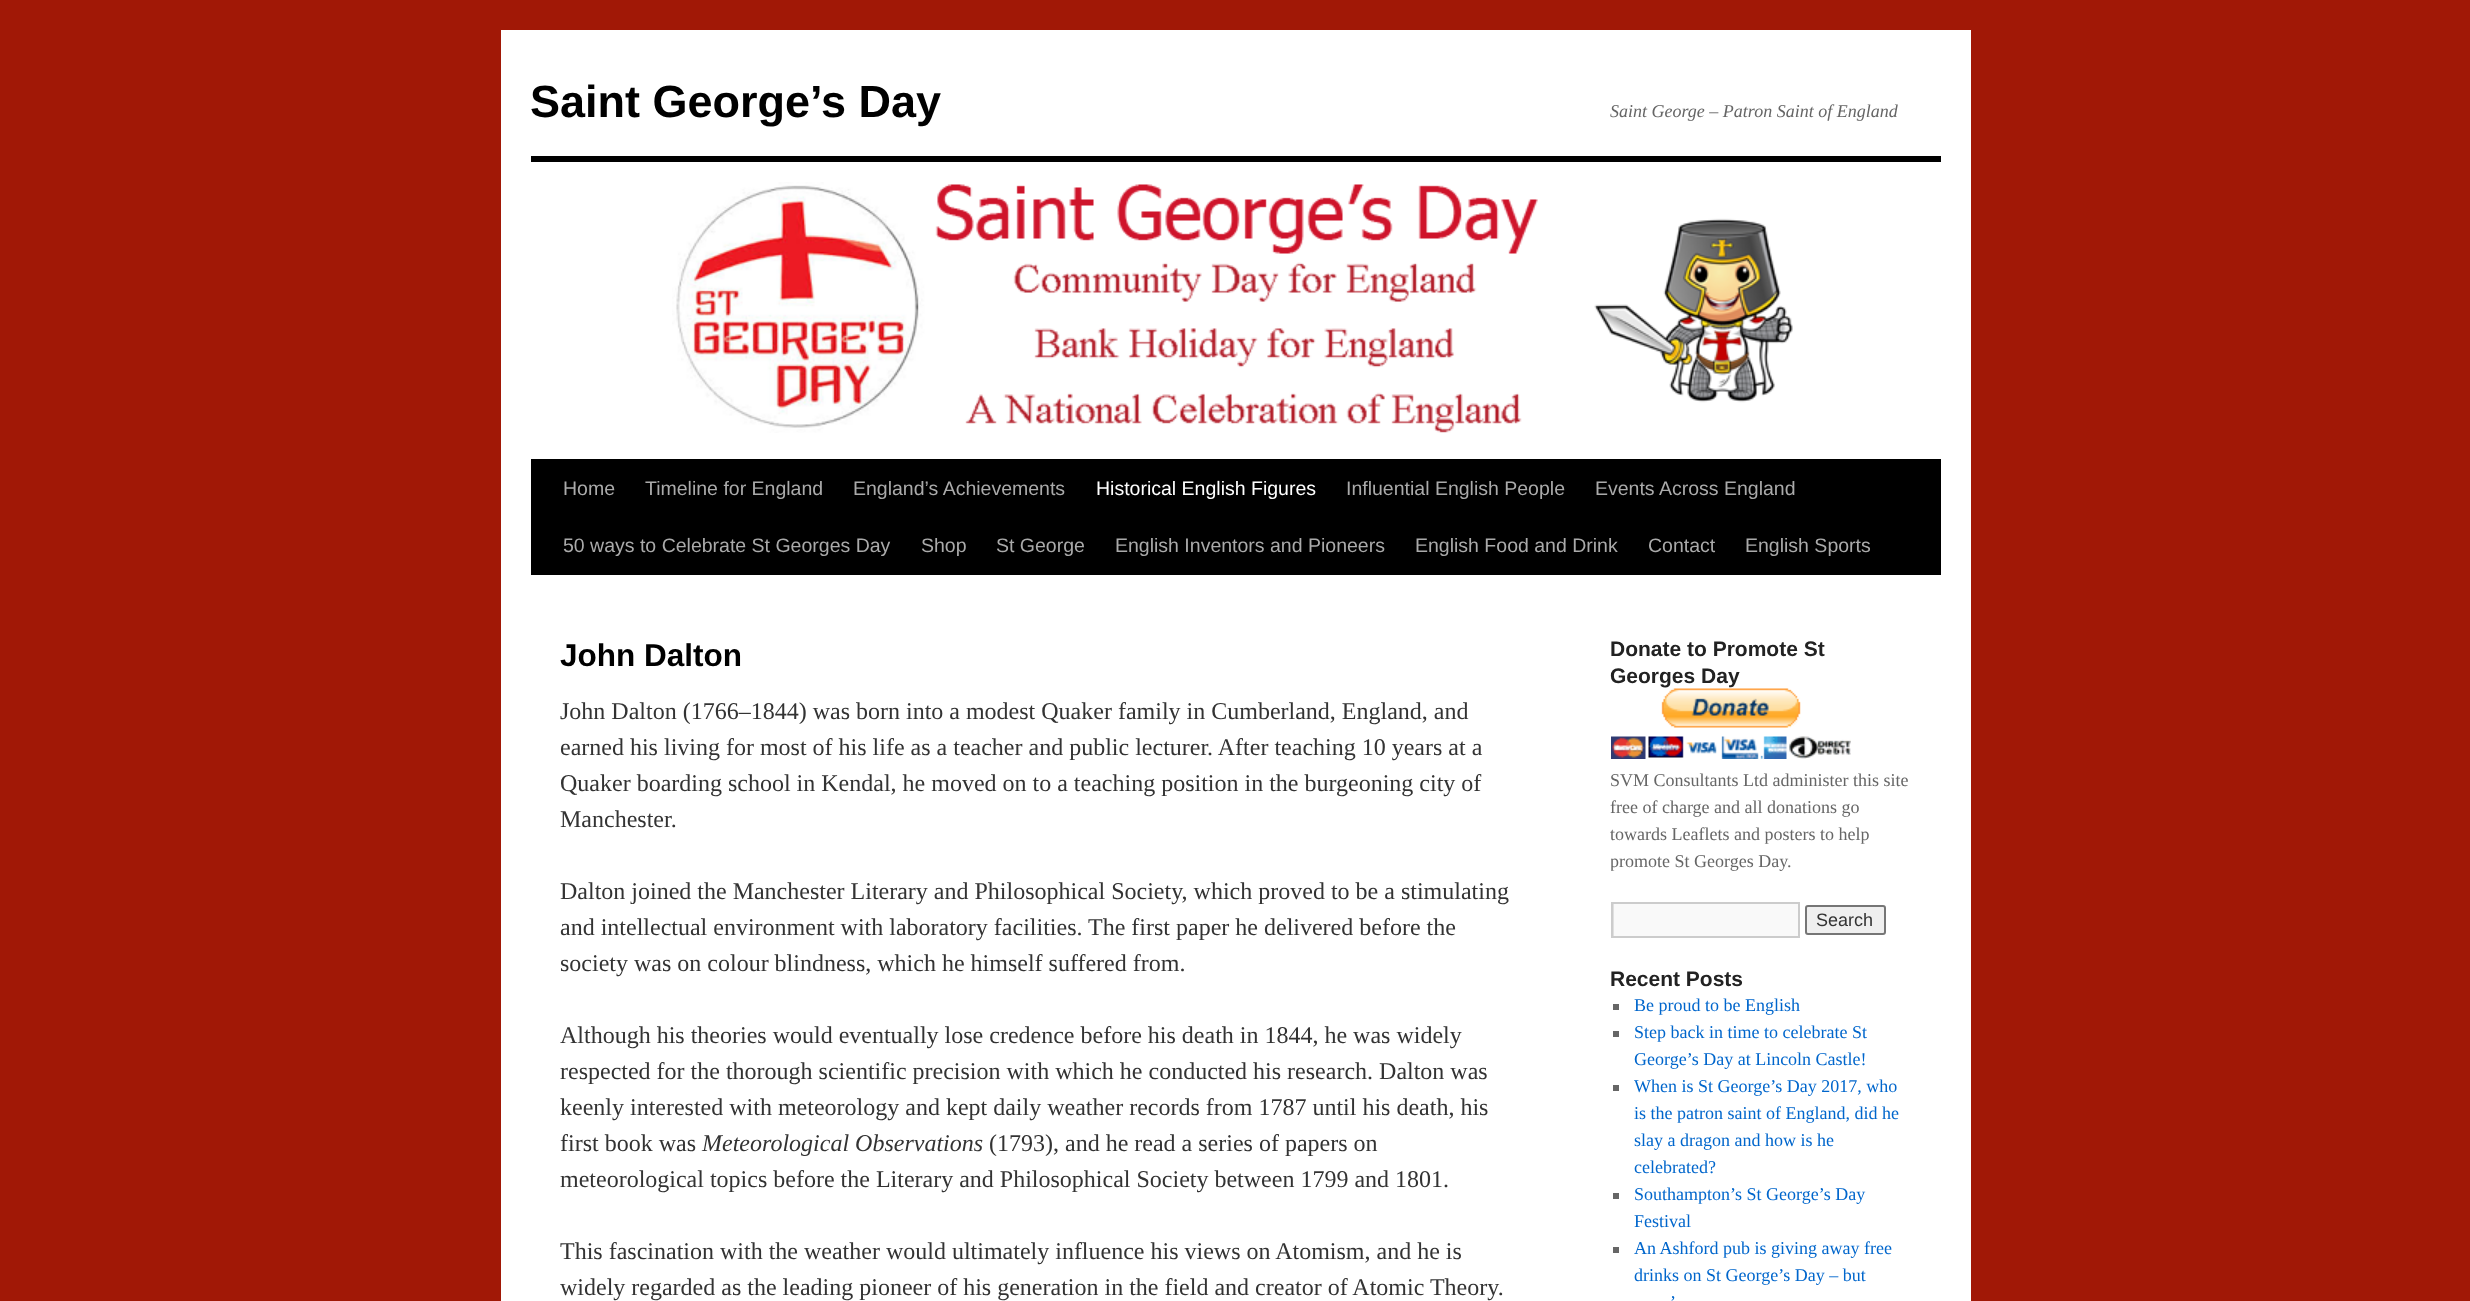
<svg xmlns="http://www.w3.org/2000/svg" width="2470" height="1301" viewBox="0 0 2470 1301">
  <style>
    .t1 { font: bold 45px Liberation Sans; fill: #000; }
    .t2 { font: italic 18px Liberation Serif; fill: #666; }
    .t3 { font: 19.5px Liberation Sans; fill: #aaa; }
    .t4 { font: 19.5px Liberation Sans; fill: #fff; }
    .t5 { font: bold 31.5px Liberation Sans; fill: #000; }
    .t6 { font: 24px Liberation Serif; fill: #333; }
    .t7 { font: italic 24px Liberation Serif; fill: #333; }
    .t8 { font: bold 21px Liberation Sans; fill: #222; }
    .t9 { font: 18px Liberation Serif; fill: #666; }
    .t10 { font: 18px Liberation Sans; fill: #333; }
    .t11 { font: 18px Liberation Serif; fill: #06c; }
  </style>
  <defs>
    <clipPath id="clip1"><rect x="1611" y="635" width="330" height="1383"/></clipPath>
    <clipPath id="clip2"><rect x="1613" y="903" width="186" height="33"/></clipPath>
  </defs>
  <rect width="100%" height="100%" fill="#a11806"/>
  <rect x="501" y="30" width="1470" height="1271" fill="#fff"/>
  <text x="530" y="117" class="t1">Saint George’s Day</text>
  <text x="1610" y="117" class="t2">Saint George – Patron Saint of England</text>
  <rect x="531" y="156" width="1410" height="6" fill="#000"/>
  <rect x="531" y="459" width="1410" height="116" fill="#000"/>
  <image x="672" y="182" width="1121" height="251" href="images/1.png"/>
  <text x="563" y="495" class="t3">Home</text>
  <text x="645" y="495" class="t3">Timeline for England</text>
  <text x="853" y="495" class="t3">England’s Achievements</text>
  <text x="1096" y="495" class="t4">Historical English Figures</text>
  <text x="1346" y="495" class="t3">Influential English People</text>
  <text x="1595" y="495" class="t3">Events Across England</text>
  <text x="563" y="552" class="t3">50 ways to Celebrate St Georges Day</text>
  <text x="921" y="552" class="t3">Shop</text>
  <text x="996" y="552" class="t3">St George</text>
  <text x="1115" y="552" class="t3">English Inventors and Pioneers</text>
  <text x="1415" y="552" class="t3">English Food and Drink</text>
  <text x="1648" y="552" class="t3">Contact</text>
  <text x="1745" y="552" class="t3">English Sports</text>
  <text x="560" y="666" class="t5">John Dalton</text>
  <text x="560" y="719" class="t6">John Dalton (1766–1844) was born into a modest Quaker family in Cumberland, England, and</text>
  <text x="560" y="755" class="t6">earned his living for most of his life as a teacher and public lecturer. After teaching 10 years at a</text>
  <text x="560" y="791" class="t6">Quaker boarding school in Kendal, he moved on to a teaching position in the burgeoning city of</text>
  <text x="560" y="827" class="t6">Manchester.</text>
  <text x="560" y="899" class="t6">Dalton joined the Manchester Literary and Philosophical Society, which proved to be a stimulating</text>
  <text x="560" y="935" class="t6">and intellectual environment with laboratory facilities. The first paper he delivered before the</text>
  <text x="560" y="971" class="t6">society was on colour blindness, which he himself suffered from.</text>
  <text x="560" y="1043" class="t6">Although his theories would eventually lose credence before his death in 1844, he was widely</text>
  <text x="560" y="1079" class="t6">respected for the thorough scientific precision with which he conducted his research. Dalton was</text>
  <text x="560" y="1115" class="t6">keenly interested with meteorology and kept daily weather records from 1787 until his death, his</text>
  <text x="560" y="1151" class="t6">first book was</text>
  <text x="702" y="1151" class="t7">Meteorological Observations</text>
  <text x="989" y="1151" class="t6">(1793), and he read a series of papers on</text>
  <text x="560" y="1187" class="t6">meteorological topics before the Literary and Philosophical Society between 1799 and 1801.</text>
  <text x="560" y="1259" class="t6">This fascination with the weather would ultimately influence his views on Atomism, and he is</text>
  <text x="560" y="1295" class="t6">widely regarded as the leading pioneer of his generation in the field and creator of Atomic Theory.</text>
  <text x="1610" y="656" class="t8">Donate to Promote St</text>
  <text x="1610" y="683" class="t8">Georges Day</text>
  <image x="1611" y="688" width="240" height="71" href="images/2.png"/>
  <text x="1610" y="786" class="t9">SVM Consultants Ltd administer this site</text>
  <text x="1610" y="813" class="t9">free of charge and all donations go</text>
  <text x="1610" y="840" class="t9">towards Leaflets and posters to help</text>
  <g clip-path="url(#clip1)">
    <text x="1610" y="867" class="t9">promote St Georges Day.</text>
  </g>
  <rect x="1614" y="904" width="184" height="32" fill="#f9f9f9"/>
  <g clip-path="url(#clip2)">
    <path d="M1464 754H1947V1084H1464ZM1614 904H1800V938H1614Z" fill="#e0e0e0" fill-rule="evenodd"/>
  </g>
  <rect x="1612" y="903" width="187" height="34" fill="none" stroke="#ccc" stroke-width="2"/>
  <rect x="1806" y="906" width="79" height="28" rx="2" fill="#efefef" stroke="#767676" stroke-width="2"/>
  <text x="1816" y="926" class="t10">Search</text>
  <text x="1610" y="986" class="t8">Recent Posts</text>
  <rect x="1613" y="1004" width="6" height="6" fill="#666"/>
  <text x="1634" y="1011" class="t11">Be proud to be English</text>
  <rect x="1613" y="1031" width="6" height="6" fill="#666"/>
  <text x="1634" y="1038" class="t11">Step back in time to celebrate St</text>
  <text x="1634" y="1065" class="t11">George’s Day at Lincoln Castle!</text>
  <rect x="1613" y="1085" width="6" height="6" fill="#666"/>
  <text x="1634" y="1092" class="t11">When is St George’s Day 2017, who</text>
  <text x="1634" y="1119" class="t11">is the patron saint of England, did he</text>
  <text x="1634" y="1146" class="t11">slay a dragon and how is he</text>
  <text x="1634" y="1173" class="t11">celebrated?</text>
  <rect x="1613" y="1193" width="6" height="6" fill="#666"/>
  <text x="1634" y="1200" class="t11">Southampton’s St George’s Day</text>
  <text x="1634" y="1227" class="t11">Festival</text>
  <rect x="1613" y="1247" width="6" height="6" fill="#666"/>
  <text x="1634" y="1254" class="t11">An Ashford pub is giving away free</text>
  <text x="1634" y="1281" class="t11">drinks on St George’s Day – but</text>
  <text x="1670" y="1308" class="t11">’</text>
</svg>
